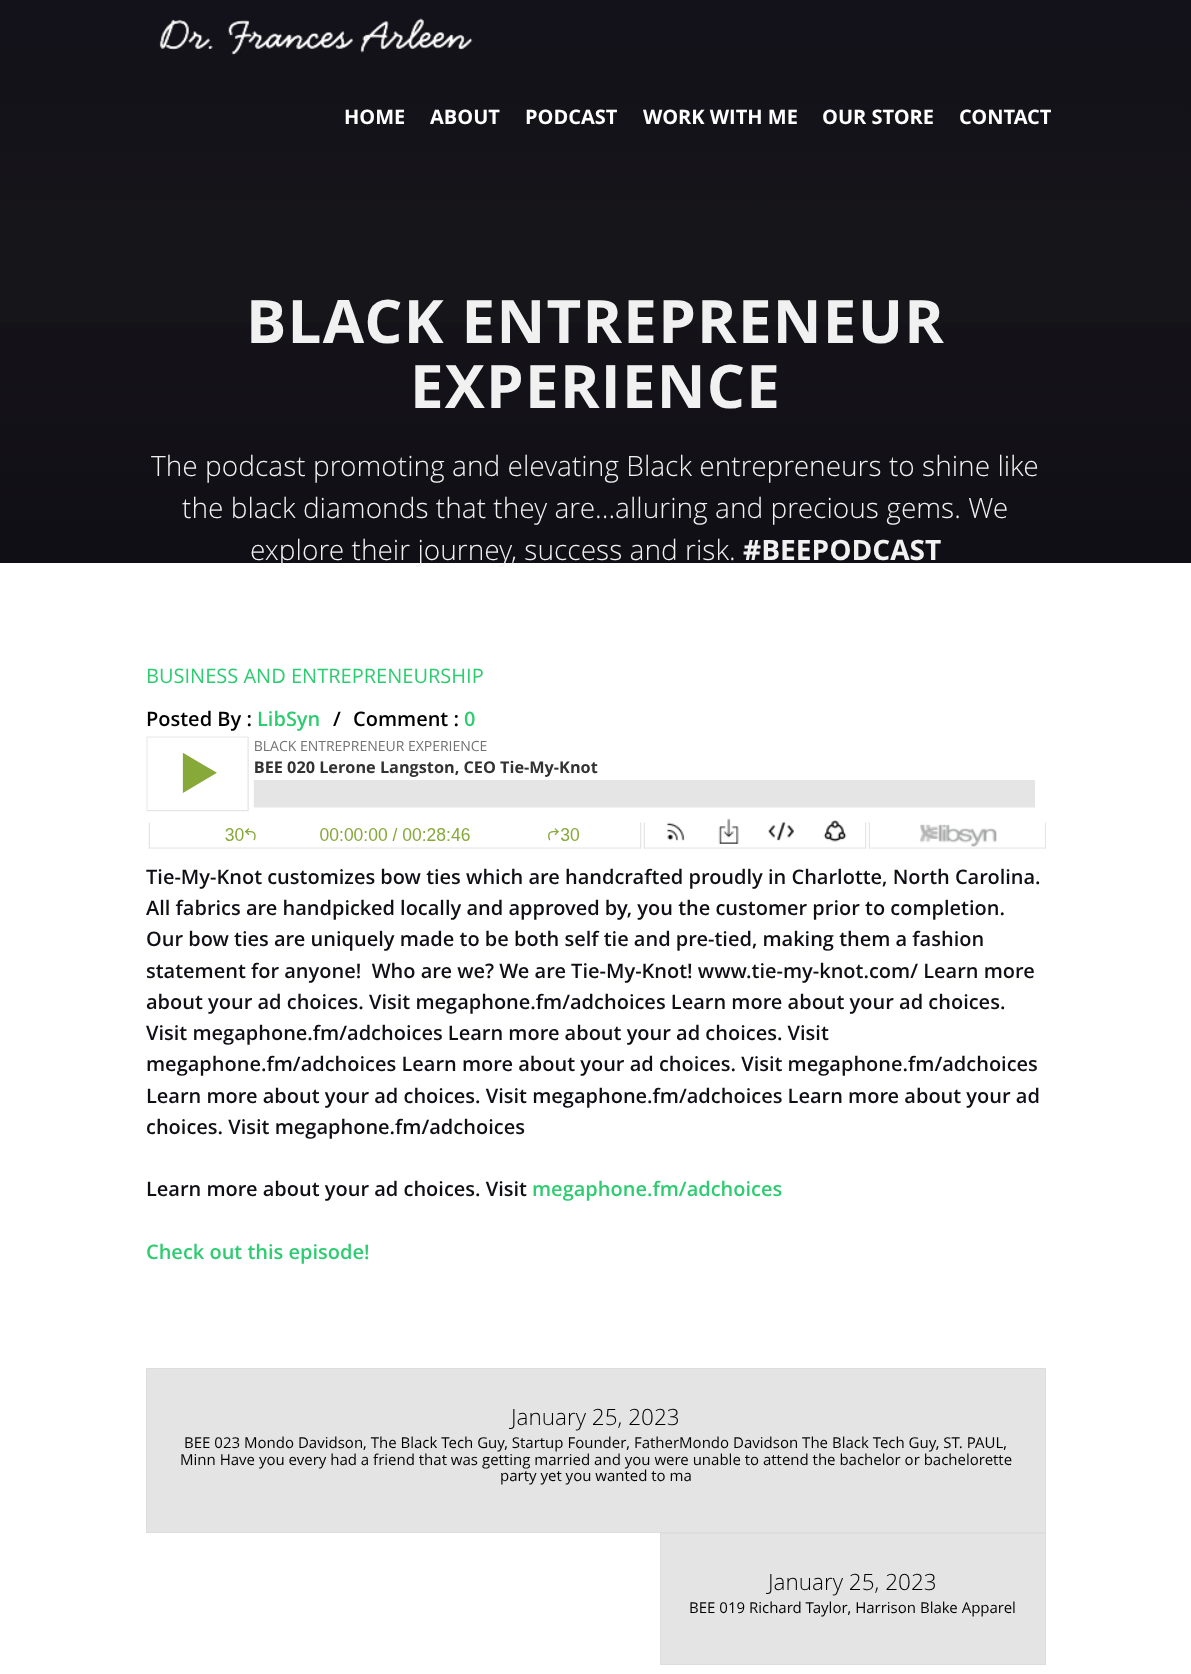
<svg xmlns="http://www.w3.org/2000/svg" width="1191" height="1674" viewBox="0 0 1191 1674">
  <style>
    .t1 { font: bold 20px Open Sans; fill: #fff; }
    .t2 { font: bold 60px Open Sans; letter-spacing: 1.25px; fill: #f1f1f1; }
    .t3 { font: 300 28.1px Open Sans; fill: #f1f1f1; }
    .t4 { font: bold 28.1px Open Sans; fill: #f1f1f1; }
    .t5 { font: 20px Open Sans; fill: #2ecc71; }
    .t6 { font: 600 20px Open Sans; fill: #000; }
    .t7 { font: 600 20px Open Sans; fill: #2ecc71; }
    .t8 { font: 600 20px Open Sans; fill: #110f16; }
    .t9 { font: 300 22.5px Open Sans; fill: #000; }
    .t10 { font: 15px Open Sans; fill: #000; }
  </style>
  <defs>
    <linearGradient id="g1" gradientUnits="userSpaceOnUse" x1="596" y1="250" x2="596" y2="0"><stop offset="0" stop-color="#16151a"/><stop offset="1" stop-color="#131119"/></linearGradient>
    <linearGradient id="g2" gradientUnits="userSpaceOnUse" x1="596" y1="187" x2="596" y2="563"><stop offset="0" stop-color="#110f16" stop-opacity="0"/><stop offset="1" stop-color="#110f16"/></linearGradient>
  </defs>
  <rect width="100%" height="100%" fill="#fff"/>
  <rect x="0" y="0" width="1191" height="250" fill="url(#g1)"/>
  <image x="159" y="18" width="314" height="37" href="images/1.png"/>
  <text x="344" y="124" class="t1">HOME</text>
  <text x="430" y="124" class="t1">ABOUT</text>
  <text x="525" y="124" class="t1">PODCAST</text>
  <text x="643" y="124" class="t1">WORK WITH ME</text>
  <text x="822" y="124" class="t1">OUR STORE</text>
  <text x="959" y="124" class="t1">CONTACT</text>
  <rect x="0" y="250" width="1191" height="311" fill="#16151a"/>
  <rect x="0" y="323" width="1191" height="240" fill="url(#g2)"/>
  <text x="246" y="343" class="t2">BLACK ENTREPRENEUR</text>
  <text x="410" y="408" class="t2">EXPERIENCE</text>
  <text x="151" y="476" class="t3">The podcast promoting and elevating Black entrepreneurs to shine like</text>
  <text x="182" y="518" class="t3">the black diamonds that they are...alluring and precious gems. We</text>
  <text x="250" y="560" class="t3">explore their journey, success and risk.</text>
  <text x="743" y="560" class="t4">#BEEPODCAST</text>
  <text x="146" y="683" class="t5">BUSINESS AND ENTREPRENEURSHIP</text>
  <text x="146" y="726" class="t6">Posted By :</text>
  <text x="257" y="726" class="t7">LibSyn</text>
  <text x="333" y="726" class="t6">/</text>
  <text x="353" y="726" class="t6">Comment :</text>
  <text x="464" y="726" class="t7">0</text>
  <image x="146" y="736" width="900" height="113" href="images/2.png"/>
  <text x="146" y="884" class="t8">Tie-My-Knot customizes bow ties which are handcrafted proudly in Charlotte, North Carolina.</text>
  <text x="146" y="915" class="t8">All fabrics are handpicked locally and approved by, you the customer prior to completion.</text>
  <text x="146" y="946" class="t8">Our bow ties are uniquely made to be both self tie and pre-tied, making them a fashion</text>
  <text x="146" y="978" class="t8" xml:space="preserve">statement for anyone!  Who are we? We are Tie-My-Knot! www.tie-my-knot.com/ Learn more</text>
  <text x="146" y="1009" class="t8">about your ad choices. Visit megaphone.fm/adchoices Learn more about your ad choices.</text>
  <text x="146" y="1040" class="t8">Visit megaphone.fm/adchoices Learn more about your ad choices. Visit</text>
  <text x="146" y="1071" class="t8">megaphone.fm/adchoices Learn more about your ad choices. Visit megaphone.fm/adchoices</text>
  <text x="146" y="1103" class="t8">Learn more about your ad choices. Visit megaphone.fm/adchoices Learn more about your ad</text>
  <text x="146" y="1134" class="t8">choices. Visit megaphone.fm/adchoices</text>
  <text x="146" y="1196" class="t8">Learn more about your ad choices. Visit</text>
  <text x="532" y="1196" class="t7">megaphone.fm/adchoices</text>
  <text x="146" y="1259" class="t7">Check out this episode!</text>
  <rect x="146.5" y="1368.5" width="899" height="164" fill="#e4e4e4" stroke="#ddd"/>
  <text x="511" y="1425" class="t9">January 25, 2023</text>
  <text x="184" y="1448" class="t10">BEE 023 Mondo Davidson, The Black Tech Guy, Startup Founder, FatherMondo Davidson The Black Tech Guy, ST. PAUL,</text>
  <text x="180" y="1465" class="t10">Minn Have you every had a friend that was getting married and you were unable to attend the bachelor or bachelorette</text>
  <text x="500" y="1481" class="t10">party yet you wanted to ma</text>
  <rect x="660.5" y="1533.5" width="385" height="131" fill="#e4e4e4" stroke="#ddd"/>
  <text x="768" y="1590" class="t9">January 25, 2023</text>
  <text x="689" y="1613" class="t10">BEE 019 Richard Taylor, Harrison Blake Apparel</text>
</svg>
